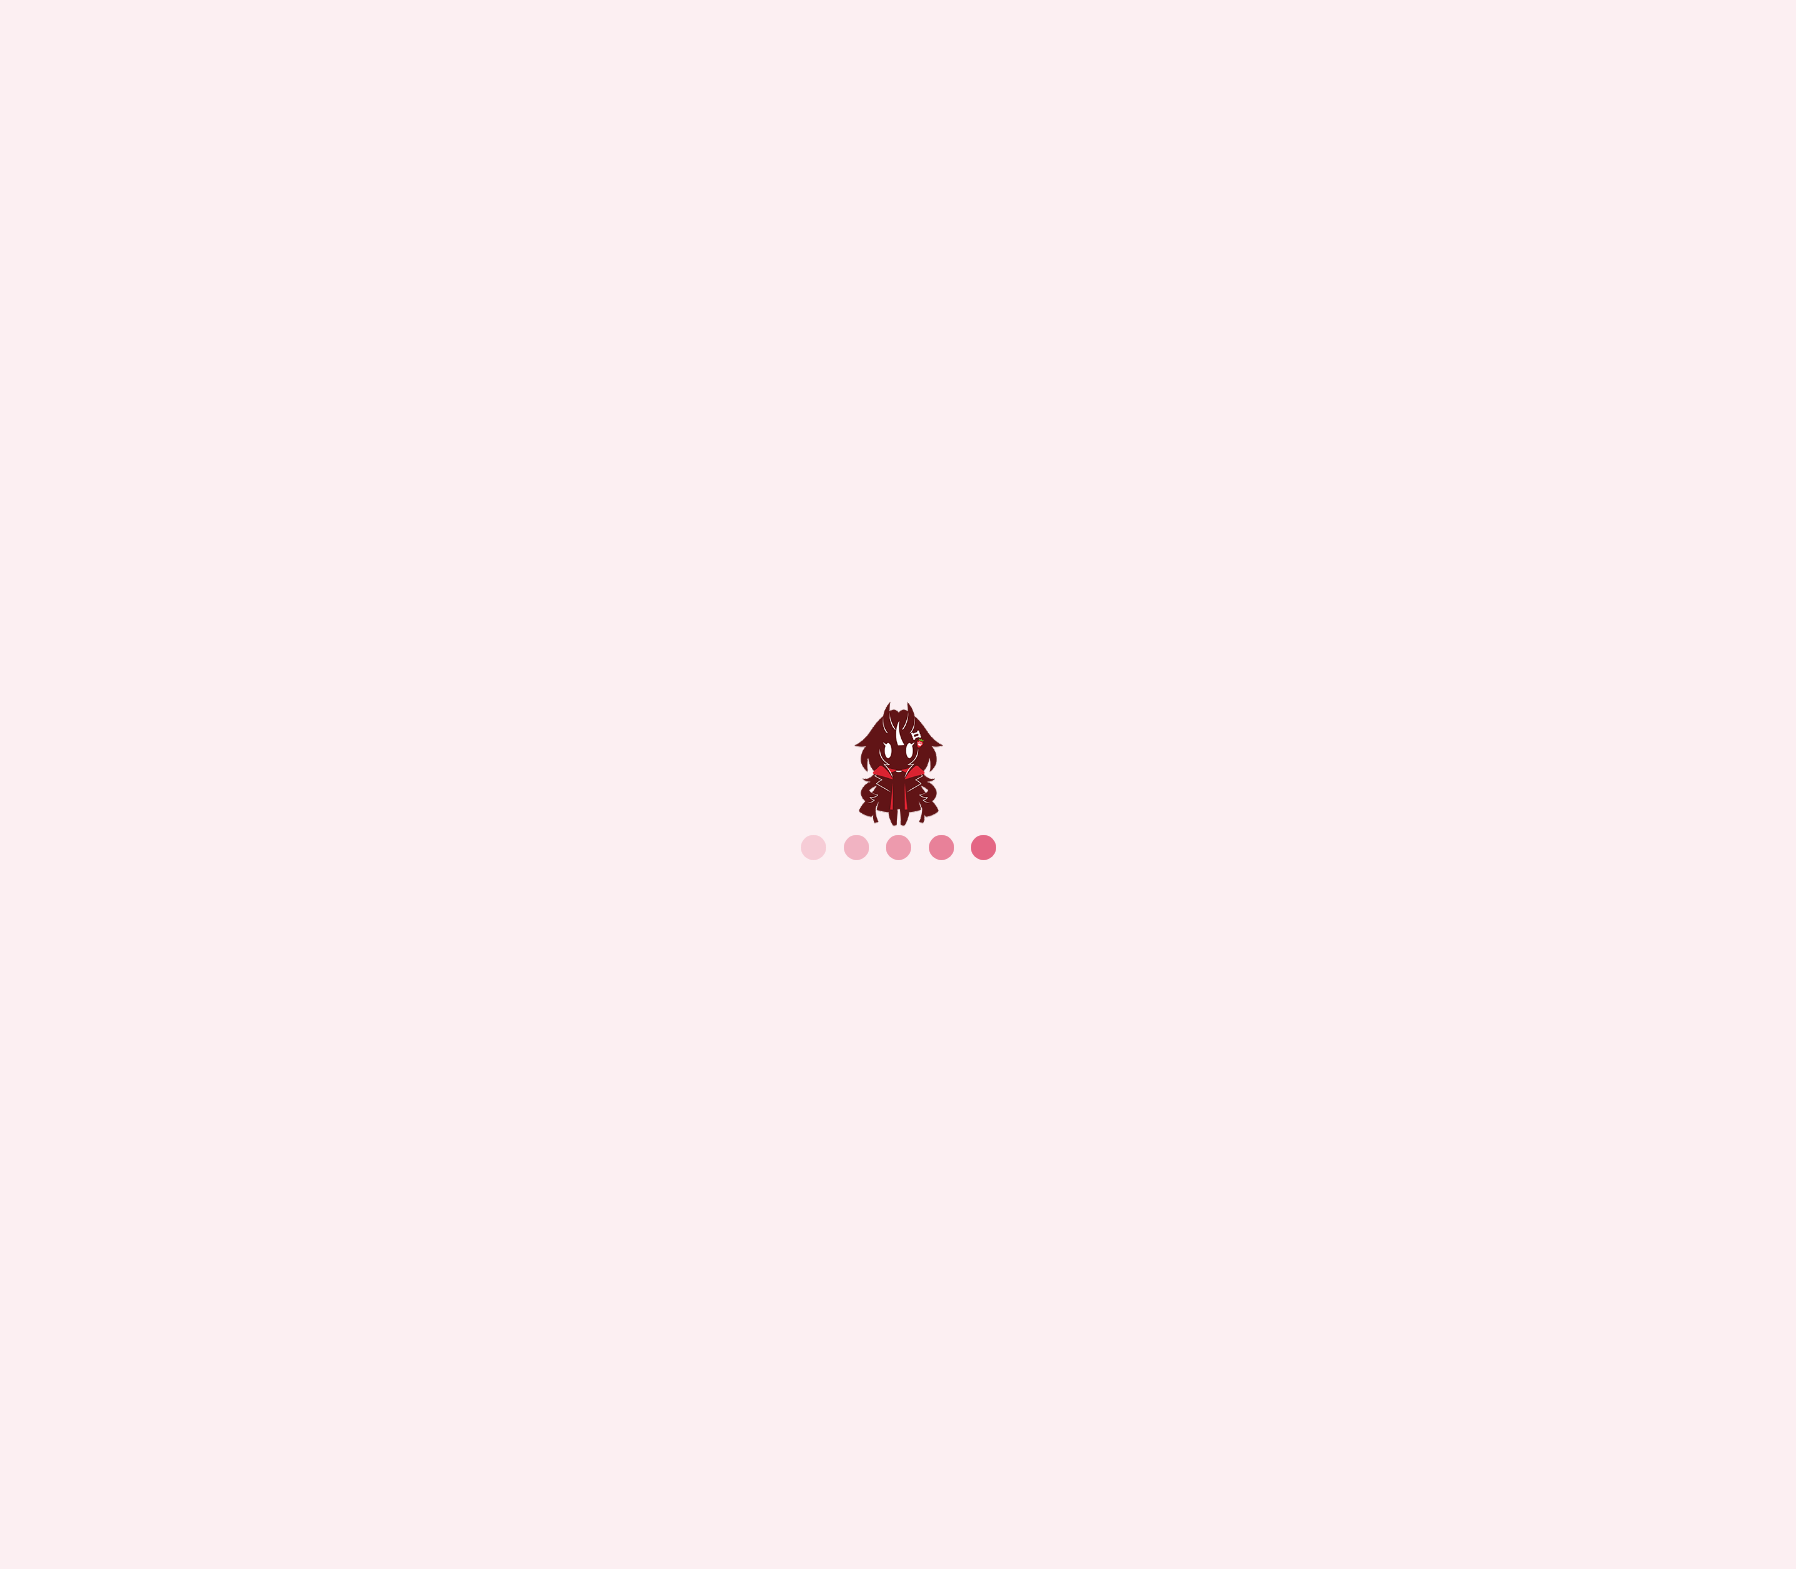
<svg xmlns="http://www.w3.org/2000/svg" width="1796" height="1569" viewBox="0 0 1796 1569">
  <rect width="100%" height="100%" fill="#fceff2"/>
  <image x="854" y="701" width="89" height="126" href="images/1.png"/>
  <image x="854" y="702" width="89" height="124" href="images/2.png"/>
  <circle cx="813.5" cy="847.5" r="12.5" fill="#f6ccd6"/>
  <circle cx="813.5" cy="847.5" r="12.5" fill="#f6ccd6b3"/>
  <circle cx="856.5" cy="847.5" r="12.5" fill="#f1b3c2"/>
  <circle cx="856.5" cy="847.5" r="12.5" fill="#f1b3c2b3"/>
  <circle cx="898.5" cy="847.5" r="12.5" fill="#ed9aad"/>
  <circle cx="898.5" cy="847.5" r="12.5" fill="#ed9aadb3"/>
  <circle cx="941.5" cy="847.5" r="12.5" fill="#e88199"/>
  <circle cx="941.5" cy="847.5" r="12.5" fill="#e88199b3"/>
  <circle cx="983.5" cy="847.5" r="12.5" fill="#e46784"/>
  <circle cx="983.5" cy="847.5" r="12.5" fill="#e46784b3"/>
</svg>
